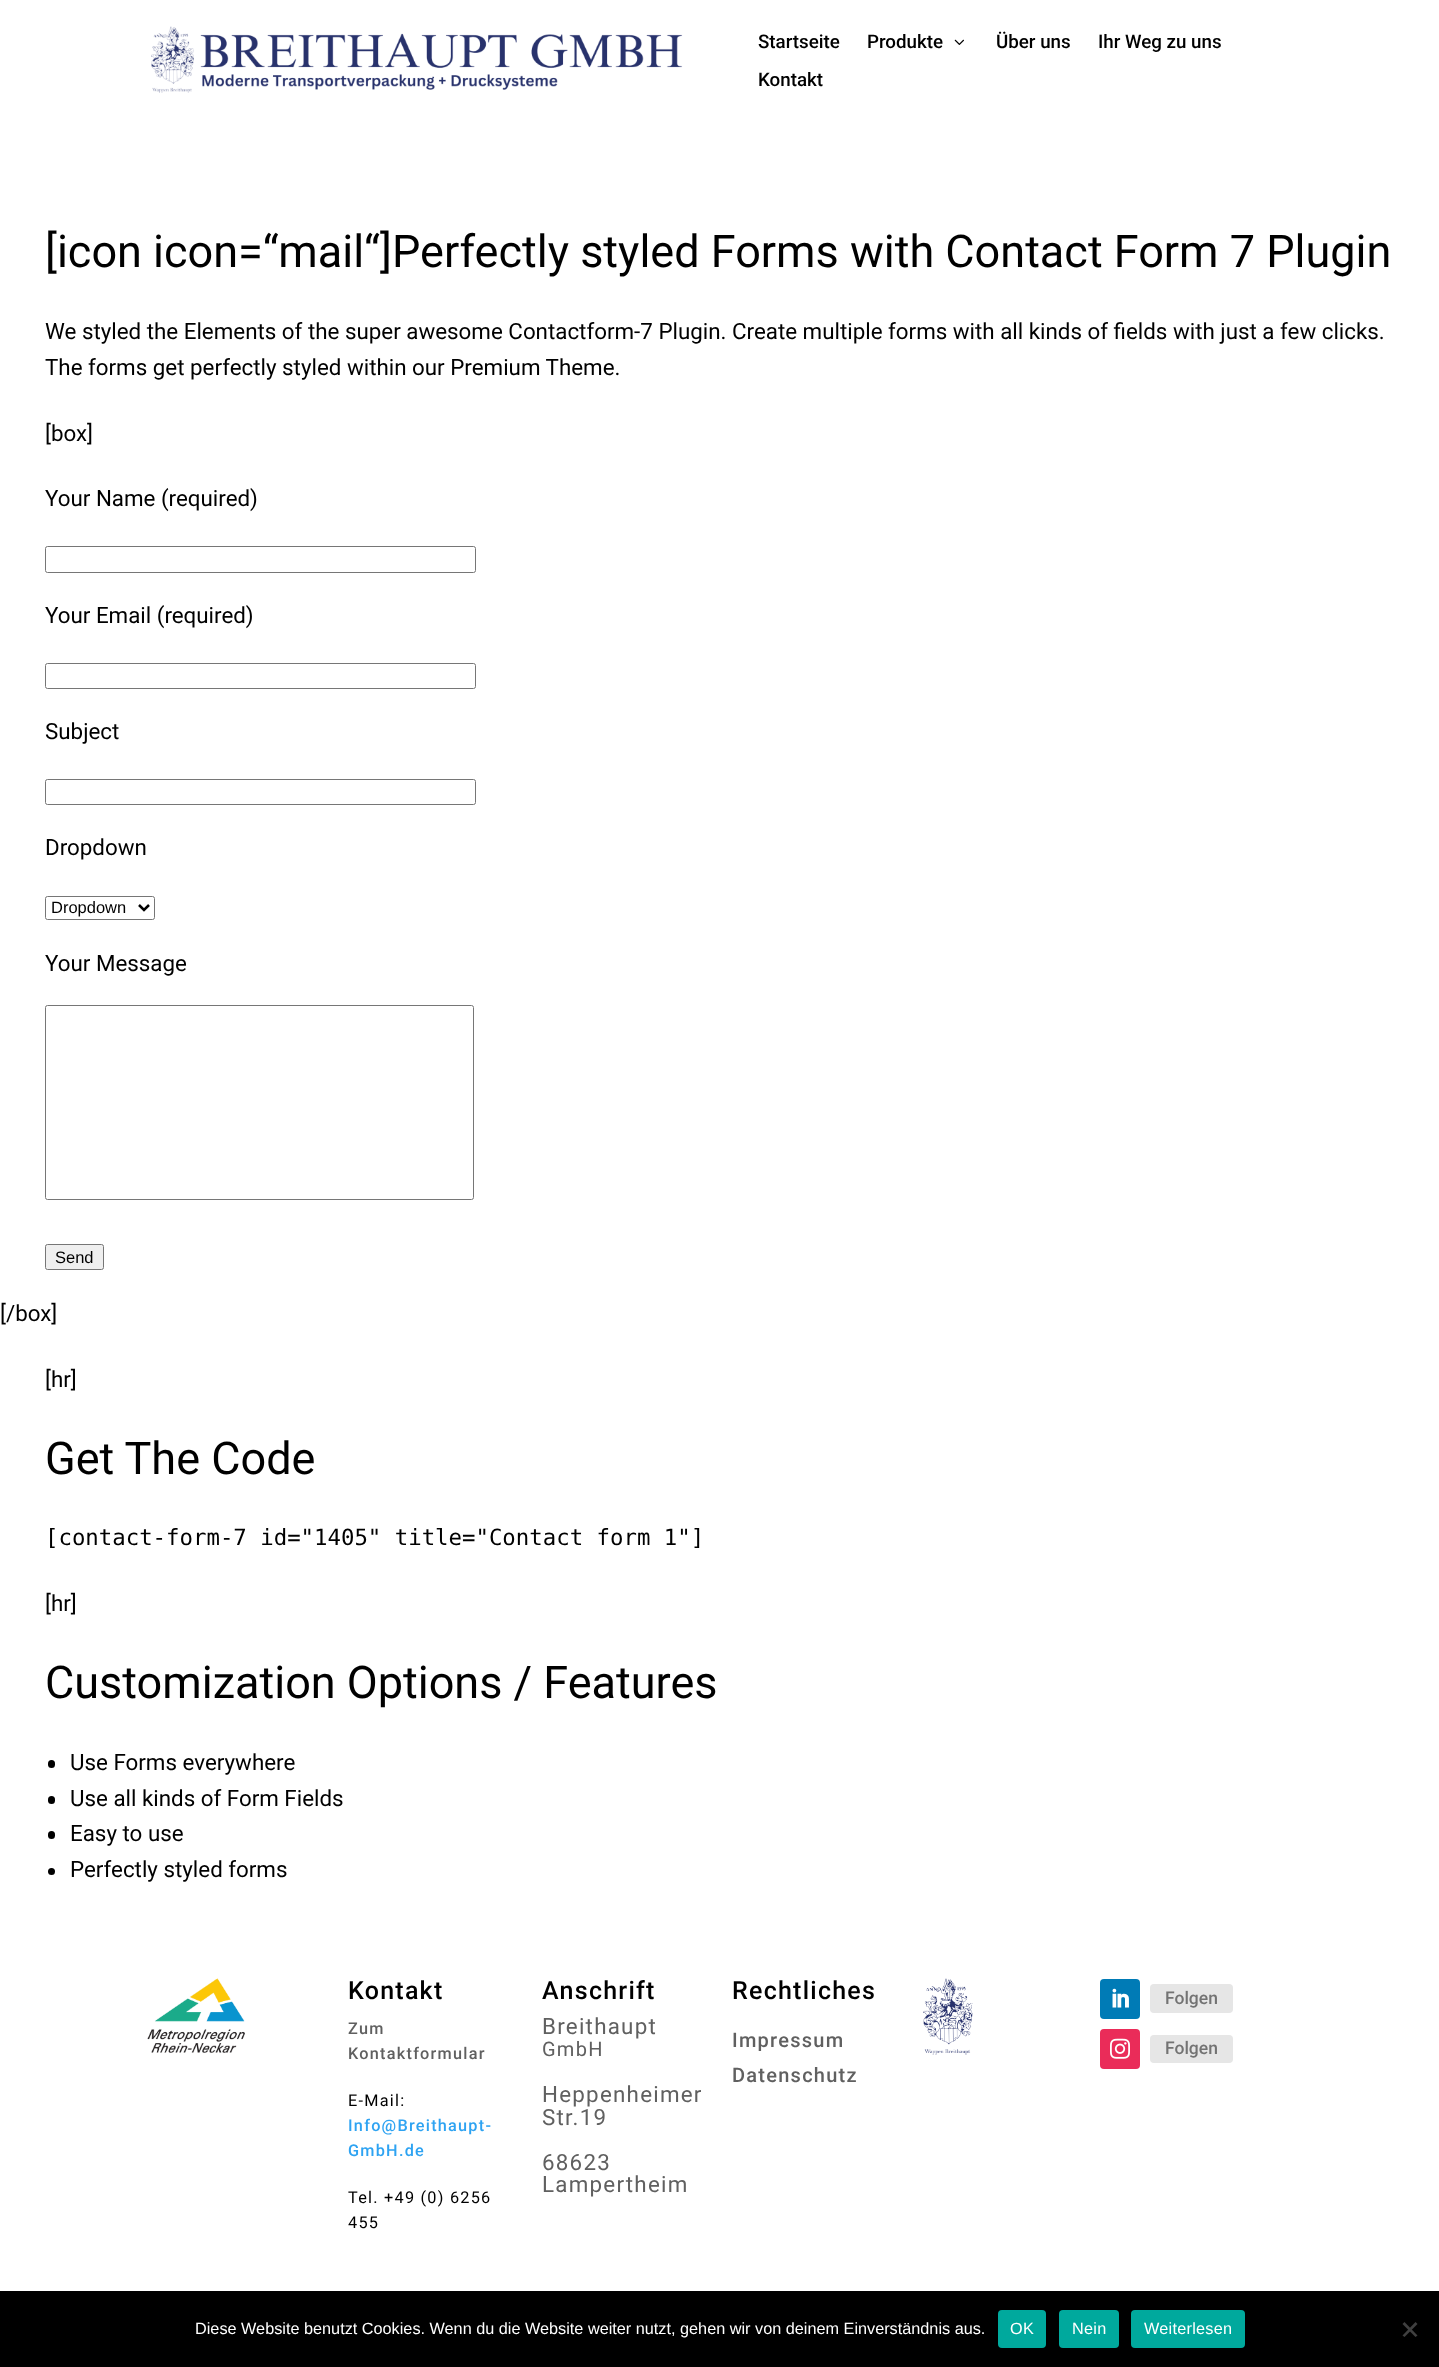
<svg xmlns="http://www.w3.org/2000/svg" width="1439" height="2367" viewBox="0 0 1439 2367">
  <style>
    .t1 { font: 500 18.75px Roboto; fill: #000; }
    .t2 { font: 45px Roboto; fill: #000; }
    .t3 { font: 22.35px Roboto; fill: #000; }
    .t4 { font: 16.5px Liberation Sans; fill: #000; }
    .t5 { font: 22.35px DejaVu Sans Mono; fill: #000; }
    .t6 { font: 500 25px Roboto; letter-spacing: 1.25px; fill: #000; }
    .t7 { font: 500 16.25px Roboto; letter-spacing: 1.25px; fill: #606060; }
    .t8 { font: 16.25px Roboto; letter-spacing: 1.25px; fill: #000; }
    .t9 { font: 500 16.25px Roboto; letter-spacing: 1.25px; fill: #2ea3f2; }
    .t10 { font: 22.35px Roboto; letter-spacing: 1.25px; fill: #606060; }
    .t11 { font: 20px Roboto; letter-spacing: 1.25px; fill: #606060; }
    .t12 { font: 500 20px Roboto; letter-spacing: 1.25px; fill: #606060; }
    .t13 { font: 500 17.5px Roboto; fill: #737373; }
    .t14 { font: 16.25px Liberation Sans; fill: #fff; }
    .t15 { font: 16.25px Liberation Sans; letter-spacing: 0.25px; fill: #fff; }
  </style>
  <rect width="100%" height="100%" fill="#fff"/>
  <image x="151" y="26" width="532" height="67" href="images/1.png"/>
  <text x="758" y="48" class="t1">Startseite</text>
  <text x="867" y="48" class="t1">Produkte</text>
  <image x="954" y="39" width="10" height="6" href="images/2.png"/>
  <text x="996" y="48" class="t1">Über uns</text>
  <text x="1098" y="48" class="t1">Ihr Weg zu uns</text>
  <text x="758" y="86" class="t1">Kontakt</text>
  <text x="45" y="267" class="t2">[icon icon=“mail“]Perfectly styled Forms with Contact Form 7 Plugin</text>
  <text x="45" y="339" class="t3">We styled the Elements of the super awesome Contactform-7 Plugin. Create multiple forms with all kinds of fields with just a few clicks.</text>
  <text x="45" y="375" class="t3">The forms get perfectly styled within our Premium Theme.</text>
  <text x="45" y="441" class="t3">[box]</text>
  <text x="45" y="506" class="t3">Your Name (required)</text>
  <rect x="45.5" y="546.5" width="430" height="26" rx="2" fill="none" stroke="#767676"/>
  <text x="45" y="623" class="t3">Your Email (required)</text>
  <rect x="45.5" y="663.5" width="430" height="25" rx="2" fill="none" stroke="#767676"/>
  <text x="45" y="739" class="t3">Subject</text>
  <rect x="45.5" y="779.5" width="430" height="25" rx="2" fill="none" stroke="#767676"/>
  <text x="45" y="855" class="t3">Dropdown</text>
  <rect x="45.5" y="896.5" width="109" height="23" rx="2" fill="none" stroke="#767676"/>
  <path d="M139 905L144 910L149 905" fill="none" stroke="#000" stroke-width="2.5"/>
  <text x="51" y="913" class="t4">Dropdown</text>
  <text x="45" y="971" class="t3">Your Message</text>
  <rect x="45.5" y="1005.5" width="428" height="194" rx="2" fill="none" stroke="#767676"/>
  <rect x="45.5" y="1244.5" width="58" height="25" rx="2" fill="#efefef" stroke="#767676"/>
  <text x="55" y="1263" class="t4">Send</text>
  <text x="0" y="1321" class="t3">[/box]</text>
  <text x="45" y="1387" class="t3">[hr]</text>
  <text x="45" y="1474" class="t2">Get The Code</text>
  <text x="45" y="1545" class="t5">[contact-form-7 id="1405" title="Contact form 1"]</text>
  <text x="45" y="1611" class="t3">[hr]</text>
  <text x="45" y="1698" class="t2">Customization Options / Features</text>
  <rect x="48" y="1760" width="7" height="8" rx="3.5" fill="#000"/>
  <text x="70" y="1770" class="t3">Use Forms everywhere</text>
  <rect x="48" y="1796" width="7" height="8" rx="3.5" fill="#000"/>
  <text x="70" y="1806" class="t3">Use all kinds of Form Fields</text>
  <rect x="48" y="1831" width="7" height="8" rx="3.5" fill="#000"/>
  <text x="70" y="1841" class="t3">Easy to use</text>
  <circle cx="51.5" cy="1871.5" r="3.5" fill="#000"/>
  <text x="70" y="1877" class="t3">Perfectly styled forms</text>
  <image x="147" y="1978" width="98" height="75" href="images/3.png"/>
  <text x="348" y="1999" class="t6">Kontakt</text>
  <text x="348" y="2034" class="t7">Zum</text>
  <text x="348" y="2059" class="t7">Kontaktformular</text>
  <text x="348" y="2106" class="t8">E-Mail:</text>
  <text x="348" y="2131" class="t9">Info@Breithaupt-</text>
  <text x="348" y="2156" class="t9">GmbH.de</text>
  <text x="348" y="2203" class="t8">Tel. +49 (0) 6256</text>
  <text x="348" y="2228" class="t8">455</text>
  <text x="542" y="1999" class="t6">Anschrift</text>
  <text x="542" y="2034" class="t10">Breithaupt</text>
  <text x="542" y="2056" class="t11">GmbH</text>
  <text x="542" y="2102" class="t10">Heppenheimer</text>
  <text x="542" y="2125" class="t10">Str.19</text>
  <text x="542" y="2170" class="t10">68623</text>
  <text x="542" y="2192" class="t10">Lampertheim</text>
  <text x="732" y="1999" class="t6">Rechtliches</text>
  <text x="732" y="2047" class="t12">Impressum</text>
  <text x="732" y="2082" class="t12">Datenschutz</text>
  <image x="923" y="1978" width="50" height="77" href="images/4.png"/>
  <rect x="1100" y="1979" width="40" height="40" rx="4" fill="#007bb6"/>
  <image x="1112" y="1988" width="17" height="20" href="images/5.png"/>
  <rect x="1150" y="1984" width="83" height="29" rx="4" fill="#e6e6e6"/>
  <text x="1165" y="2004" class="t13">Folgen</text>
  <rect x="1100" y="2029" width="40" height="40" rx="4" fill="#ea2c59"/>
  <image x="1110" y="2038" width="20" height="21" href="images/6.png"/>
  <rect x="1150" y="2035" width="83" height="28" rx="4" fill="#e6e6e6"/>
  <text x="1165" y="2054" class="t13">Folgen</text>
  <rect x="0" y="2291" width="1439" height="76" fill="#000"/>
  <text x="195" y="2334" class="t14">Diese Website benutzt Cookies. Wenn du die Website weiter nutzt, gehen wir von deinem Einverständnis aus.</text>
  <rect x="998" y="2310" width="48" height="38" rx="4" fill="#00a99d"/>
  <text x="1010" y="2334" class="t15">OK</text>
  <rect x="1059" y="2310" width="60" height="38" rx="4" fill="#00a99d"/>
  <text x="1072" y="2334" class="t15">Nein</text>
  <rect x="1131" y="2310" width="114" height="38" rx="4" fill="#00a99d"/>
  <text x="1144" y="2334" class="t15">Weiterlesen</text>
  <path d="M1415.5 2322L1417.5 2324L1404.5 2337L1402.5 2335.5Z" fill="#404040"/>
  <path d="M1402.5 2324L1404.5 2322L1417.5 2335.5L1415.5 2337Z" fill="#404040"/>
</svg>
